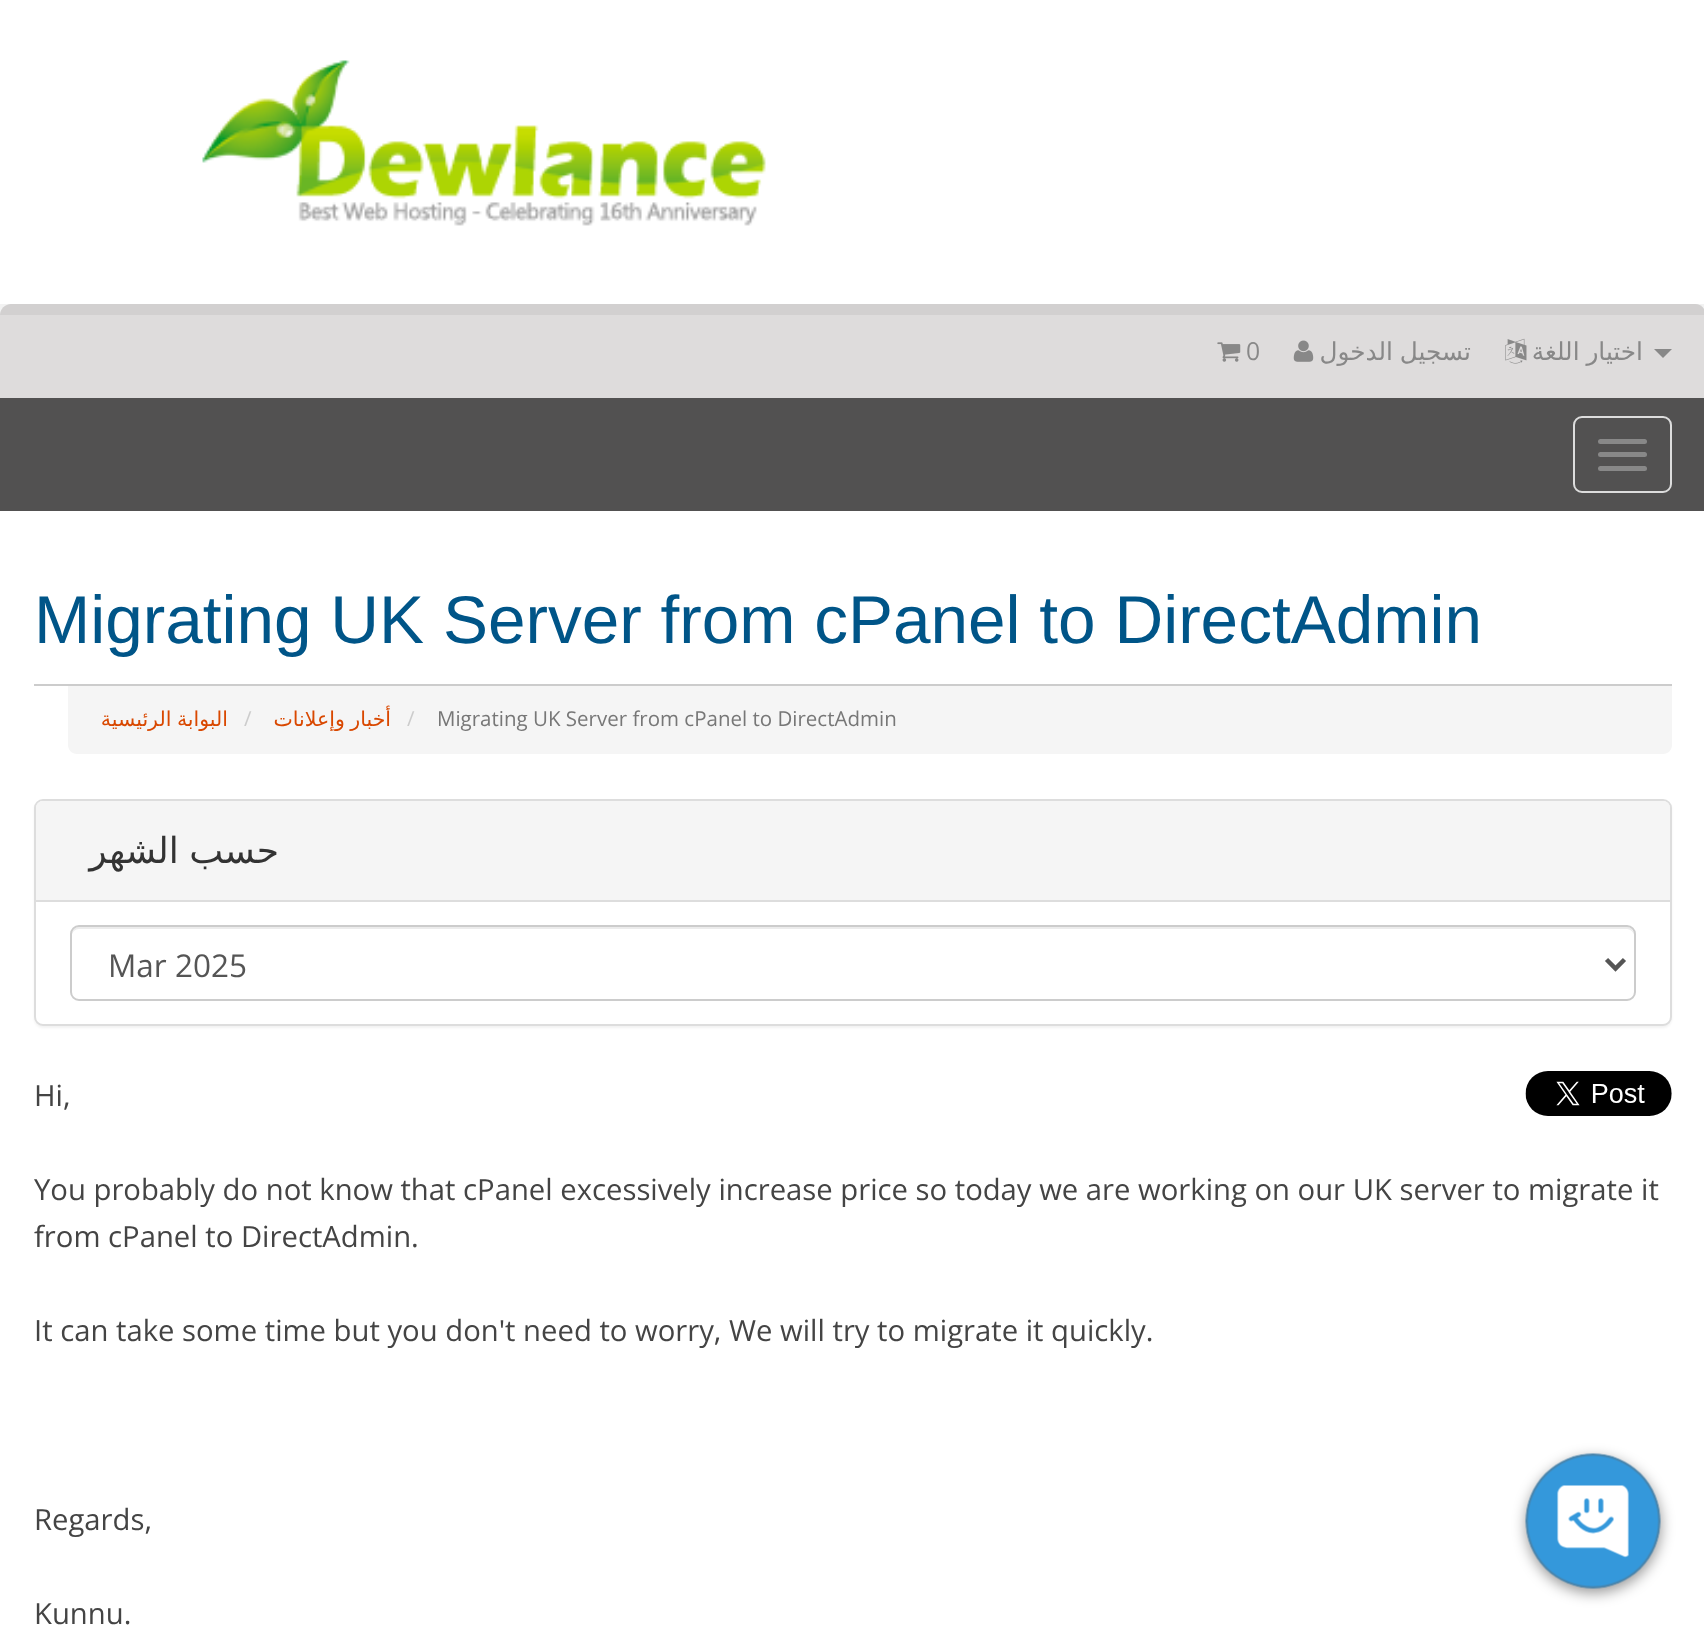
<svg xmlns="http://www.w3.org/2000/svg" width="1704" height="1632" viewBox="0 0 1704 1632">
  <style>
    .t1 { font: 24.75px Open Sans; fill: #888; }
    .t2 { font: 24.75px DejaVu Sans; direction: rtl; fill: #888; }
    .t3 { font: 67.5px Liberation Sans; fill: #058; }
    .t4 { font: 20.5px DejaVu Sans; direction: rtl; fill: #d94800; }
    .t5 { font: 20.5px Open Sans; fill: #ccc; }
    .t6 { font: 20.5px Open Sans; fill: #777; }
    .t7 { font: 36px DejaVu Sans; direction: rtl; fill: #333; }
    .t8 { font: 31.5px Open Sans; fill: #555; }
    .t9 { font: 29.25px Open Sans; fill: #444; }
  </style>
  <rect width="100%" height="100%" fill="#fff"/>
  <path d="M11 304H1695C1701 304 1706 309 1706 315V398H0V315C0 309 5 304 11 304Z" fill="#dedcdc"/>
  <path d="M0 304V315H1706V11V304Z" fill="#0000000d"/>
  <image x="202" y="60" width="564" height="166" href="images/1.png"/>
  <image x="1217" y="342" width="24" height="20" href="images/2.png"/>
  <text x="1246" y="360" class="t1">0</text>
  <image x="1293" y="340" width="21" height="22" href="images/3.png"/>
  <text x="1471" y="360" word-spacing="-1" class="t2">تسجيل الدخول</text>
  <image x="1505" y="338" width="22" height="26" href="images/4.png"/>
  <text x="1643" y="360" word-spacing="-1" class="t2">اختيار اللغة</text>
  <path d="M1654 349H1672L1663 358Z" fill="#888"/>
  <rect x="0" y="398" width="1704" height="113" fill="#525151"/>
  <rect x="1574" y="417" width="97" height="75" rx="8" fill="none" stroke="#ddd" stroke-width="2"/>
  <rect x="1598" y="439" width="49" height="5" rx="2.5" fill="#888"/>
  <rect x="1598" y="452" width="49" height="5" rx="2.5" fill="#888"/>
  <rect x="1598" y="466" width="49" height="5" rx="2.5" fill="#888"/>
  <rect x="34" y="684" width="1638" height="2" fill="#ccc"/>
  <text x="34" y="643" class="t3">Migrating UK Server from cPanel to DirectAdmin</text>
  <path d="M68 686H1672V745C1672 750 1668 754 1663 754H77C72 754 68 750 68 745Z" fill="#f5f5f5"/>
  <text x="228" y="726" word-spacing="-1" class="t4">البوابة الرئيسية</text>
  <text x="244" y="726" class="t5">/</text>
  <text x="391" y="726" word-spacing="-1" class="t4">أخبار وإعلانات</text>
  <text x="407" y="726" class="t5">/</text>
  <text x="437" y="726" class="t6">Migrating UK Server from cPanel to DirectAdmin</text>
  <rect x="34" y="801" width="1638" height="227" rx="9" fill="#0000000d" filter="blur(1px)"/>
  <rect x="35" y="800" width="1636" height="225" rx="8" fill="#fff" stroke="#ddd" stroke-width="2"/>
  <path d="M43 801H1663C1667 801 1670 804 1670 808V902H36V808C36 804 39 801 43 801Z" fill="#f5f5f5"/>
  <rect x="36" y="900" width="1634" height="2" fill="#ddd"/>
  <text x="279" y="863" word-spacing="-1" class="t7">حسب الشهر</text>
  <path d="M79 929H1627C1630 929 1634 932 1634 936C1634 932 1632 927 1627 927H79C74 927 72 932 72 936C72 932 75 929 79 929Z" fill="#ececec"/>
  <rect x="71" y="926" width="1564" height="74" rx="8" fill="none" stroke="#ccc" stroke-width="2"/>
  <path d="M1606.5 959.5L1615.5 968.5L1624.5 959.5" fill="none" stroke="#555" stroke-width="4.5"/>
  <text x="108" y="977" class="t8">Mar 2025</text>
  <text x="34" y="1106" class="t9">Hi,</text>
  <image x="1525" y="1071" width="147" height="45" href="images/5.png"/>
  <text x="34" y="1200" class="t9">You probably do not know that cPanel excessively increase price so today we are working on our UK server to migrate it</text>
  <text x="34" y="1247" class="t9">from cPanel to DirectAdmin.</text>
  <text x="34" y="1341" class="t9">It can take some time but you don't need to worry, We will try to migrate it quickly.</text>
  <text x="34" y="1530" class="t9">Regards,</text>
  <text x="34" y="1624" class="t9">Kunnu.</text>
  <rect x="1526" y="1458" width="135" height="135" rx="67.5" fill="#00000066" filter="blur(7px)"/>
  <image x="1525" y="1453" width="136" height="136" href="images/6.png"/>
</svg>
